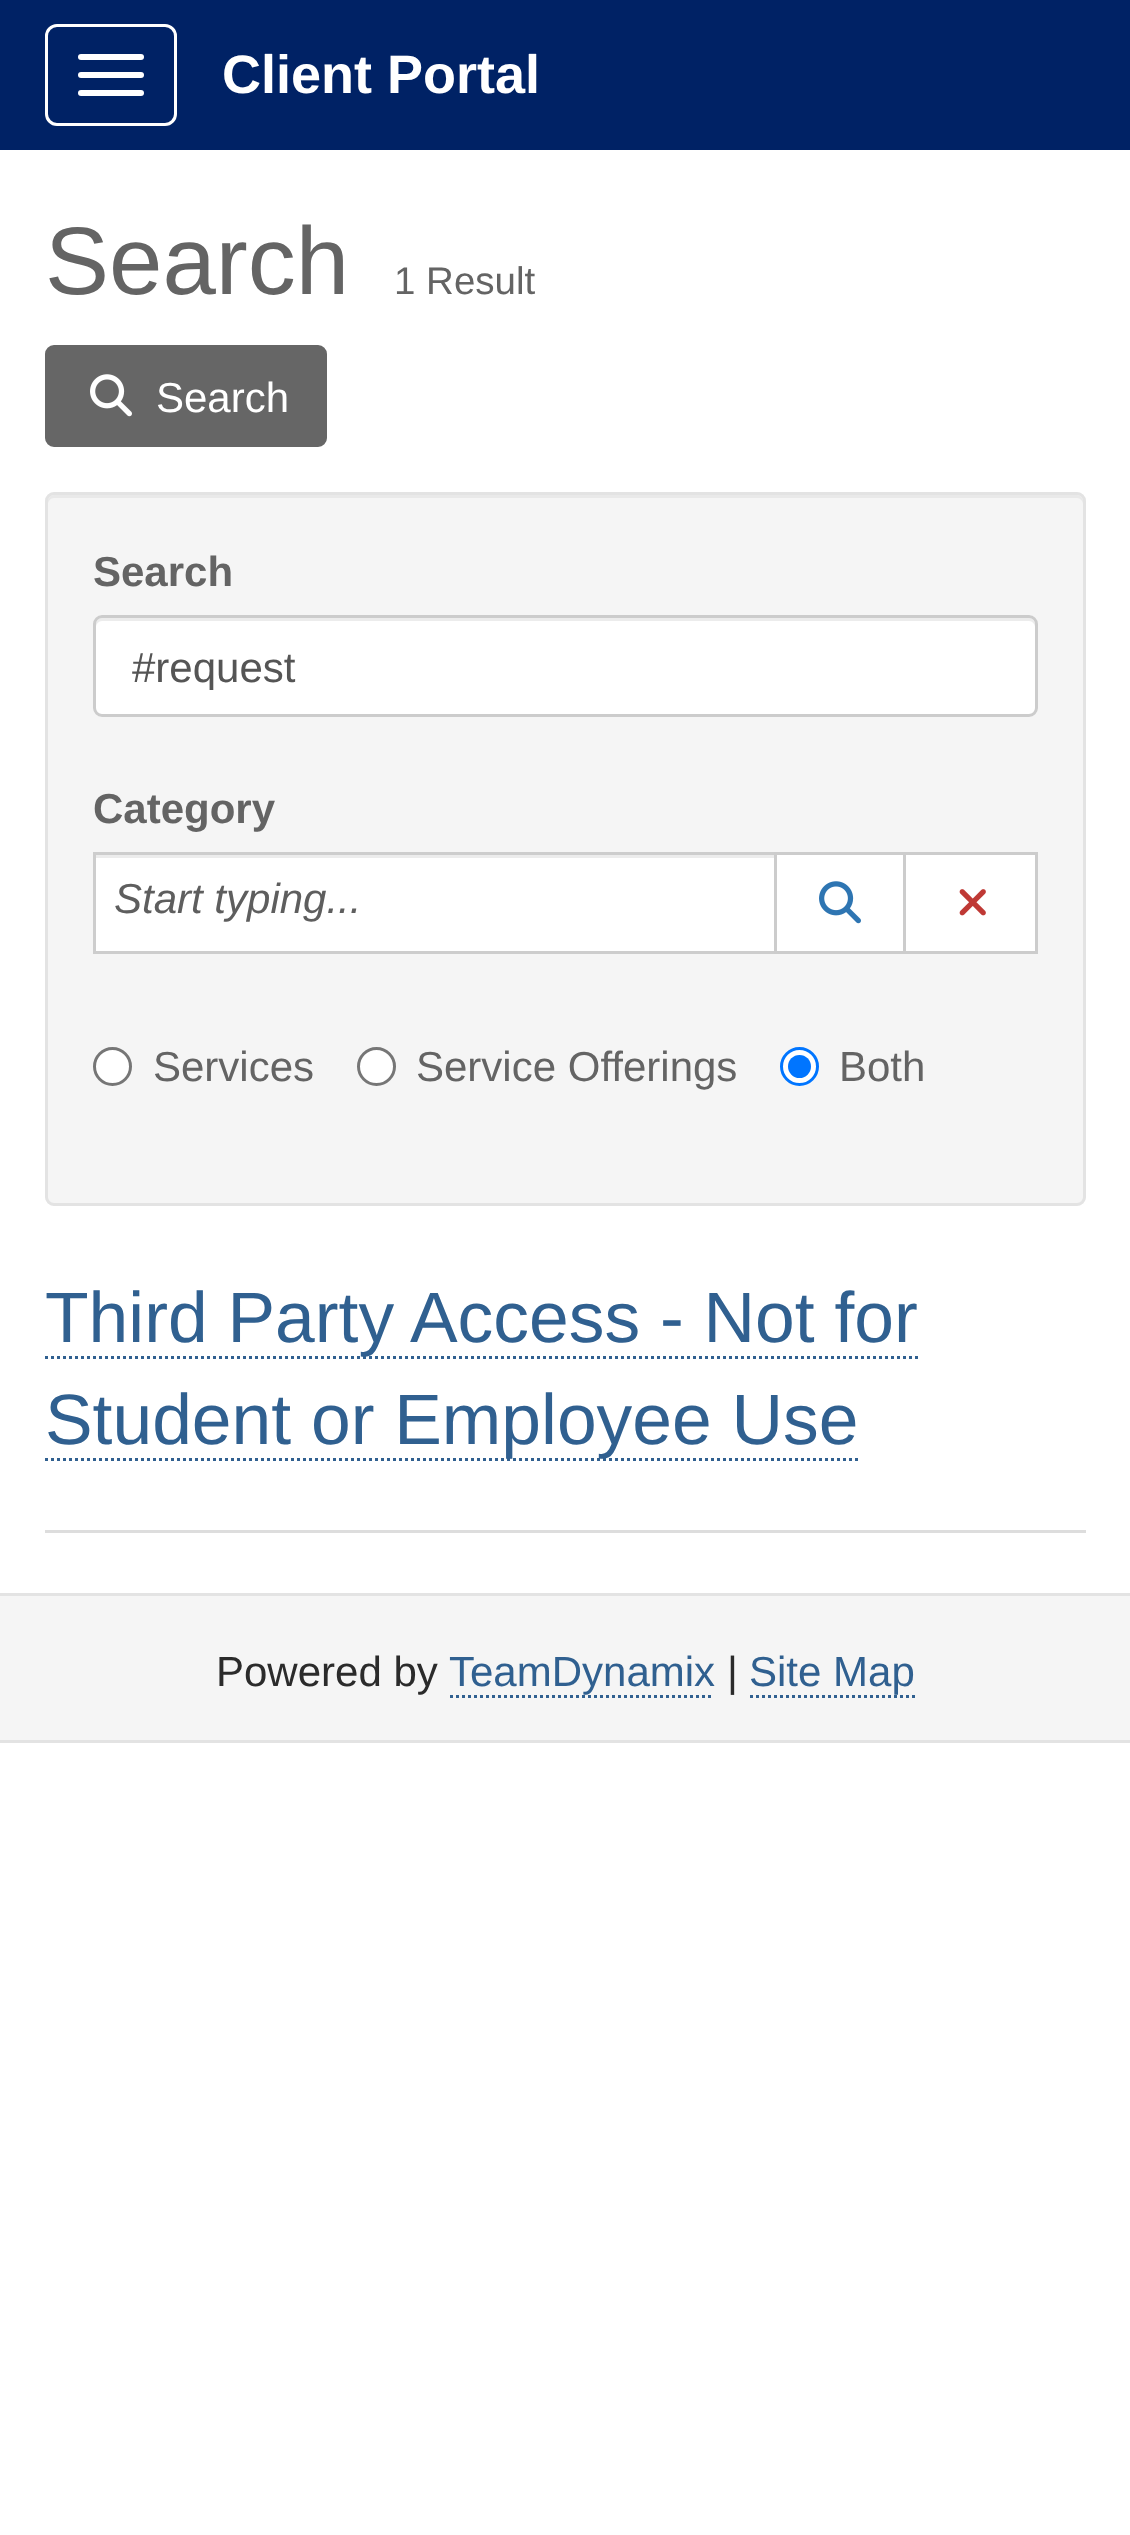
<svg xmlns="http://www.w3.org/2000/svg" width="1130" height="2535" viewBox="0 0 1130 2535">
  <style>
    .t1 { font: bold 54px Liberation Sans; fill: #fff; }
    .t2 { font: 96px Liberation Sans; fill: #646464; }
    .t3 { font: 38.5px Liberation Sans; fill: #646464; }
    .t4 { font: 42px Liberation Sans; fill: #fff; }
    .t5 { font: bold 42px Liberation Sans; fill: #646464; }
    .t6 { font: 42px Liberation Sans; fill: #555; }
    .t7 { font: italic 42px Liberation Sans; fill: #5e5e5e; }
    .t8 { font: 42px Liberation Sans; fill: #646464; }
    .t9 { font: 71.4px Liberation Sans; fill: #306090; }
    .t10 { font: 42px Liberation Sans; fill: #2b2b2b; }
    .t11 { font: 42px Liberation Sans; fill: #306090; }
  </style>
  <defs>
    <clipPath id="clip1"><rect x="132" y="642" width="867" height="48"/></clipPath>
  </defs>
  <rect width="100%" height="100%" fill="#fff"/>
  <rect x="0" y="0" width="1130" height="150" fill="#002265"/>
  <rect x="46.5" y="25.5" width="129" height="99" rx="10.5" fill="none" stroke="#fff" stroke-width="3"/>
  <rect x="78" y="54" width="66" height="6" rx="3" fill="#fff"/>
  <rect x="78" y="72" width="66" height="6" rx="3" fill="#fff"/>
  <rect x="78" y="90" width="66" height="6" rx="3" fill="#fff"/>
  <text x="222" y="93" class="t1">Client Portal</text>
  <text x="45" y="294" class="t2">Search</text>
  <text x="394" y="294" class="t3">1 Result</text>
  <rect x="46.5" y="346.5" width="279" height="99" rx="7.5" fill="#666" stroke="#666" stroke-width="3"/>
  <image x="90" y="374" width="42" height="43" href="images/1.png"/>
  <text x="156" y="412" class="t4">Search</text>
  <rect x="45" y="492" width="1041" height="714" rx="9" fill="#f5f5f5"/>
  <path d="M54 498H1077C1080 498 1083 501 1083 504V501C1083 498 1080 495 1077 495H54C51 495 48 498 48 501V504C48 501 51 498 54 498Z" fill="#e9e9e9"/>
  <rect x="46.5" y="493.5" width="1038" height="711" rx="7.5" fill="none" stroke="#e3e3e3" stroke-width="3"/>
  <text x="93" y="586" class="t5">Search</text>
  <rect x="93" y="615" width="945" height="102" rx="9" fill="#fff"/>
  <path d="M102 621H1029C1032 621 1035 624 1035 627V624C1035 621 1032 618 1029 618H102C99 618 96 621 96 624V627C96 624 99 621 102 621Z" fill="#ececec"/>
  <rect x="94.5" y="616.5" width="942" height="99" rx="7.5" fill="none" stroke="#ccc" stroke-width="3"/>
  <g clip-path="url(#clip1)">
    <text x="132" y="682" class="t6">#request</text>
  </g>
  <text x="93" y="823" class="t5">Category</text>
  <rect x="96" y="858" width="678" height="93" fill="#fff"/>
  <rect x="96" y="855" width="678" height="3" fill="#ececec"/>
  <rect x="94.5" y="853.5" width="681" height="99" fill="none" stroke="#cdcdcd" stroke-width="3"/>
  <text x="114" y="913" class="t7">Start typing...</text>
  <rect x="775.5" y="853.5" width="129" height="99" fill="#fff" stroke="#ccc" stroke-width="3"/>
  <image x="819" y="881" width="42" height="43" href="images/2.png"/>
  <rect x="904.5" y="853.5" width="132" height="99" fill="#fff" stroke="#ccc" stroke-width="3"/>
  <image x="959" y="889" width="27" height="27" href="images/3.png"/>
  <circle cx="112.5" cy="1066.5" r="18" fill="#fff" stroke="#767676" stroke-width="3"/>
  <text x="153" y="1081" class="t8">Services</text>
  <circle cx="376.5" cy="1066.5" r="18" fill="#fff" stroke="#767676" stroke-width="3"/>
  <text x="416" y="1081" class="t8">Service Offerings</text>
  <circle cx="799.5" cy="1066.5" r="18" fill="#fff" stroke="#0075ff" stroke-width="3"/>
  <circle cx="799.5" cy="1066.5" r="11.5" fill="#0075ff"/>
  <text x="839" y="1081" class="t8">Both</text>
  <path d="M45 1357.5H918" fill="none" stroke="#306090" stroke-width="3" stroke-dasharray="3 3"/>
  <text x="45" y="1342" class="t9">Third Party Access - Not for</text>
  <path d="M45 1459.5H858" fill="none" stroke="#306090" stroke-width="3" stroke-dasharray="3 3"/>
  <text x="45" y="1444" class="t9">Student or Employee Use</text>
  <rect x="45" y="1530" width="1041" height="3" fill="#ddd"/>
  <rect x="0" y="1596" width="1130" height="144" fill="#f5f5f5"/>
  <rect x="0" y="1593" width="1130" height="3" fill="#e3e3e3"/>
  <rect x="0" y="1740" width="1130" height="3" fill="#e3e3e3"/>
  <text x="216" y="1686" class="t10">Powered by</text>
  <text x="449" y="1686" class="t11">TeamDynamix</text>
  <path d="M450 1696.5H714" fill="none" stroke="#306090" stroke-width="3" stroke-dasharray="3 3"/>
  <text x="727" y="1686" class="t10">|</text>
  <text x="749" y="1686" class="t11">Site Map</text>
  <path d="M750 1696.5H915" fill="none" stroke="#306090" stroke-width="3" stroke-dasharray="3 3"/>
</svg>
